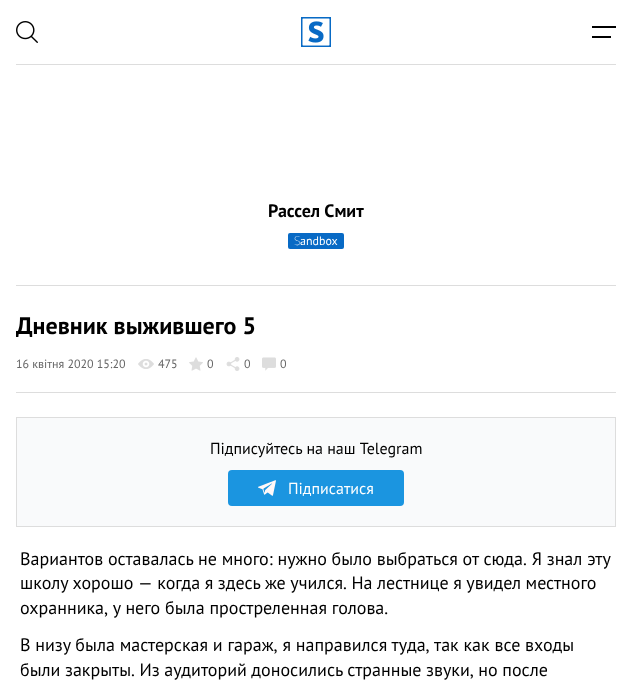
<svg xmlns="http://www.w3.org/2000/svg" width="632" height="684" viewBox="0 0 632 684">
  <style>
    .t1 { font: bold 18px PT Sans; fill: #000; }
    .t2 { font: 100 12px Noto Sans; fill: #fff; }
    .t3 { font: 12px PT Sans; fill: #fff; }
    .t4 { font: bold 24px PT Sans; fill: #000; }
    .t5 { font: 12px PT Sans; fill: #666; }
    .t6 { font: 16px PT Sans; fill: #000; }
    .t7 { font: 16px PT Sans; fill: #fff; }
    .t8 { font: 18px PT Sans; fill: #000; }
  </style>
  <rect width="100%" height="100%" fill="#fff"/>
  <image x="16" y="21" width="22" height="22" href="images/1.png"/>
  <image x="301" y="17" width="30" height="30" href="images/2.png"/>
  <rect x="592" y="26" width="24" height="2" fill="#000"/>
  <rect x="592" y="36" width="19" height="2" fill="#000"/>
  <rect x="16" y="64" width="600" height="1" fill="#ddd"/>
  <text x="268" y="217" class="t1">Рассел Смит</text>
  <rect x="288" y="233" width="56" height="16" rx="2" fill="#086ac5"/>
  <text x="294" y="245" class="t2">S</text>
  <text x="300" y="245" class="t3">andbox</text>
  <rect x="16" y="285" width="600" height="1" fill="#ddd"/>
  <text x="16" y="334" class="t4">Дневник выжившего 5</text>
  <text x="16" y="368" class="t5">16 квітня 2020 15:20</text>
  <image x="138" y="359" width="16" height="10" href="images/3.png"/>
  <text x="158" y="368" class="t5">475</text>
  <image x="189" y="357" width="14" height="14" href="images/4.png"/>
  <text x="207" y="368" class="t5">0</text>
  <image x="226" y="357" width="14" height="14" href="images/5.png"/>
  <text x="244" y="368" class="t5">0</text>
  <image x="262" y="357" width="14" height="14" href="images/6.png"/>
  <text x="280" y="368" class="t5">0</text>
  <rect x="16" y="392" width="600" height="1" fill="#ddd"/>
  <rect x="16.5" y="417.5" width="599" height="109" fill="#f9fafb" stroke="#ddd"/>
  <text x="210" y="454" class="t6">Підписуйтесь на наш Telegram</text>
  <rect x="228" y="470" width="176" height="36" rx="4" fill="#1b95e0"/>
  <image x="258" y="480" width="18" height="16" href="images/7.png"/>
  <text x="288" y="494" class="t7">Підписатися</text>
  <text x="20" y="565" class="t8">Вариантов оставалась не много: нужно было выбраться от сюда. Я знал эту</text>
  <text x="20" y="589" word-spacing="-0.25" class="t8">школу хорошо — когда я здесь же учился. На лестнице я увидел местного</text>
  <text x="20" y="614" class="t8">охранника, у него была простреленная голова.</text>
  <text x="20" y="651" class="t8">В низу была мастерская и гараж, я направился туда, так как все входы</text>
  <text x="20" y="676" word-spacing="-0.25" class="t8">были закрыты. Из аудиторий доносились странные звуки, но после</text>
</svg>
